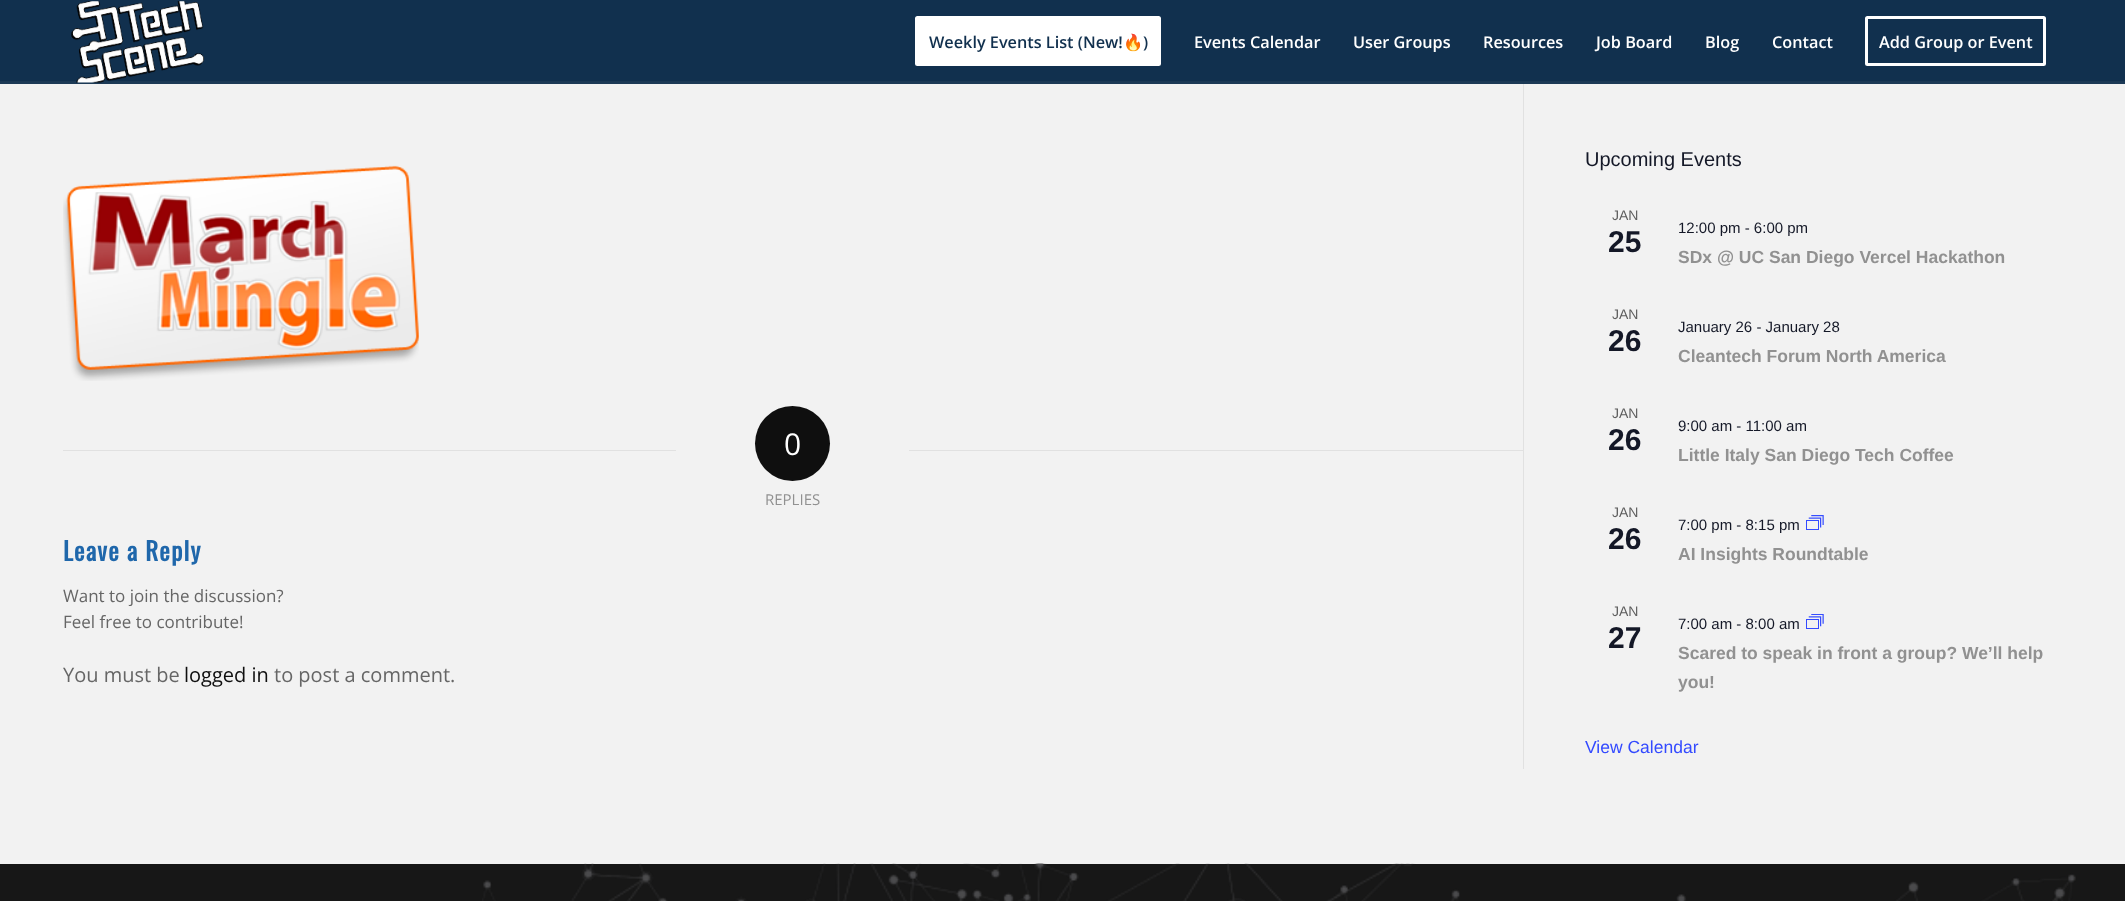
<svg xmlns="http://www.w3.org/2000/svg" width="2125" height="901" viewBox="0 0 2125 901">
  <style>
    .t1 { font: 600 16.25px Open Sans; fill: #11304e; }
    .t2 { font: bold 16.25px Noto Color Emoji; fill: #11304e; }
    .t3 { font: 600 16.25px Open Sans; fill: #fff; }
    .t4 { font: 30px Open Sans; fill: #fff; }
    .t5 { font: 15px Open Sans; fill: #919191; }
    .t6 { font: bold 25px Oswald; letter-spacing: 1.25px; fill: #1f67ab; }
    .t7 { font: 17px Open Sans; fill: #666; }
    .t8 { font: 20px Open Sans; fill: #666; }
    .t9 { font: 20px Open Sans; fill: #0f0f0f; }
    .t10 { font: 20px Liberation Sans; fill: #141827; }
    .t11 { font: 14px Liberation Sans; fill: #5d5d5d; }
    .t12 { font: bold 30px Liberation Sans; fill: #141827; }
    .t13 { font: 15px Liberation Sans; fill: #141827; }
    .t14 { font: bold 17.5px Liberation Sans; fill: #919191; }
    .t15 { font: 17.5px Liberation Sans; fill: #334aff; }
  </style>
  <rect width="100%" height="100%" fill="#11304e"/>
  <rect x="0" y="82" width="2125" height="2" fill="#1c3a56"/>
  <rect x="0" y="81" width="2125" height="1" fill="#1b3955"/>
  <image x="71" y="1" width="133" height="82" href="images/1.png"/>
  <rect x="916.5" y="17.5" width="243" height="47" rx="1" fill="#fff" stroke="#fff" stroke-width="3"/>
  <text x="929" y="48" class="t1">Weekly Events List (New!</text>
  <text x="1123" y="48" class="t2">🔥</text>
  <text x="1143" y="48" class="t1">)</text>
  <text x="1194" y="48" class="t3">Events Calendar</text>
  <text x="1353" y="48" class="t3">User Groups</text>
  <text x="1483" y="48" class="t3">Resources</text>
  <text x="1596" y="48" class="t3">Job Board</text>
  <text x="1705" y="48" class="t3">Blog</text>
  <text x="1772" y="48" class="t3">Contact</text>
  <rect x="1866.5" y="17.5" width="178" height="47" rx="1" fill="none" stroke="#fff" stroke-width="3"/>
  <text x="1879" y="48" class="t3">Add Group or Event</text>
  <rect x="0" y="84" width="2125" height="780" fill="#f2f2f2"/>
  <rect x="1523" y="83" width="1" height="686" fill="#e1e1e1"/>
  <rect x="1523" y="83" width="1" height="1" fill="#1b3955"/>
  <image x="63" y="165" width="356" height="216" href="images/2.png"/>
  <rect x="63" y="450" width="613" height="1" fill="#e1e1e1"/>
  <circle cx="792.5" cy="443.5" r="37.5" fill="#0f0f0f"/>
  <text x="784" y="455" class="t4">0</text>
  <rect x="909" y="450" width="614" height="1" fill="#e1e1e1"/>
  <text x="765" y="505" class="t5">REPLIES</text>
  <text x="63" y="561" class="t6">Leave a Reply</text>
  <text x="63" y="602" class="t7">Want to join the discussion?</text>
  <text x="63" y="628" class="t7">Feel free to contribute!</text>
  <text x="63" y="682" class="t8">You must be</text>
  <text x="184" y="682" class="t9">logged in</text>
  <text x="274" y="682" class="t8">to post a comment.</text>
  <text x="1585" y="166" class="t10">Upcoming Events</text>
  <text x="1612" y="220" class="t11">JAN</text>
  <text x="1608" y="252" class="t12">25</text>
  <text x="1678" y="233" class="t13">12:00 pm - 6:00 pm</text>
  <text x="1678" y="263" class="t14">SDx @ UC San Diego Vercel Hackathon</text>
  <text x="1612" y="319" class="t11">JAN</text>
  <text x="1608" y="351" class="t12">26</text>
  <text x="1678" y="332" class="t13">January 26 - January 28</text>
  <text x="1678" y="362" class="t14">Cleantech Forum North America</text>
  <text x="1612" y="418" class="t11">JAN</text>
  <text x="1608" y="450" class="t12">26</text>
  <text x="1678" y="431" class="t13">9:00 am - 11:00 am</text>
  <text x="1678" y="461" class="t14">Little Italy San Diego Tech Coffee</text>
  <text x="1612" y="517" class="t11">JAN</text>
  <text x="1608" y="549" class="t12">26</text>
  <text x="1678" y="530" class="t13">7:00 pm - 8:15 pm</text>
  <image x="1806" y="515" width="18" height="15" href="images/3.png"/>
  <text x="1678" y="560" class="t14">AI Insights Roundtable</text>
  <text x="1612" y="616" class="t11">JAN</text>
  <text x="1608" y="648" class="t12">27</text>
  <text x="1678" y="629" class="t13">7:00 am - 8:00 am</text>
  <image x="1806" y="614" width="18" height="15" href="images/4.png"/>
  <text x="1678" y="659" class="t14">Scared to speak in front a group? We’ll help</text>
  <text x="1678" y="688" class="t14">you!</text>
  <text x="1585" y="753" class="t15">View Calendar</text>
  <rect x="0" y="864" width="2125" height="37" fill="#171717"/>
  <image x="482" y="863" width="1594" height="38" href="images/5.png"/>
</svg>
